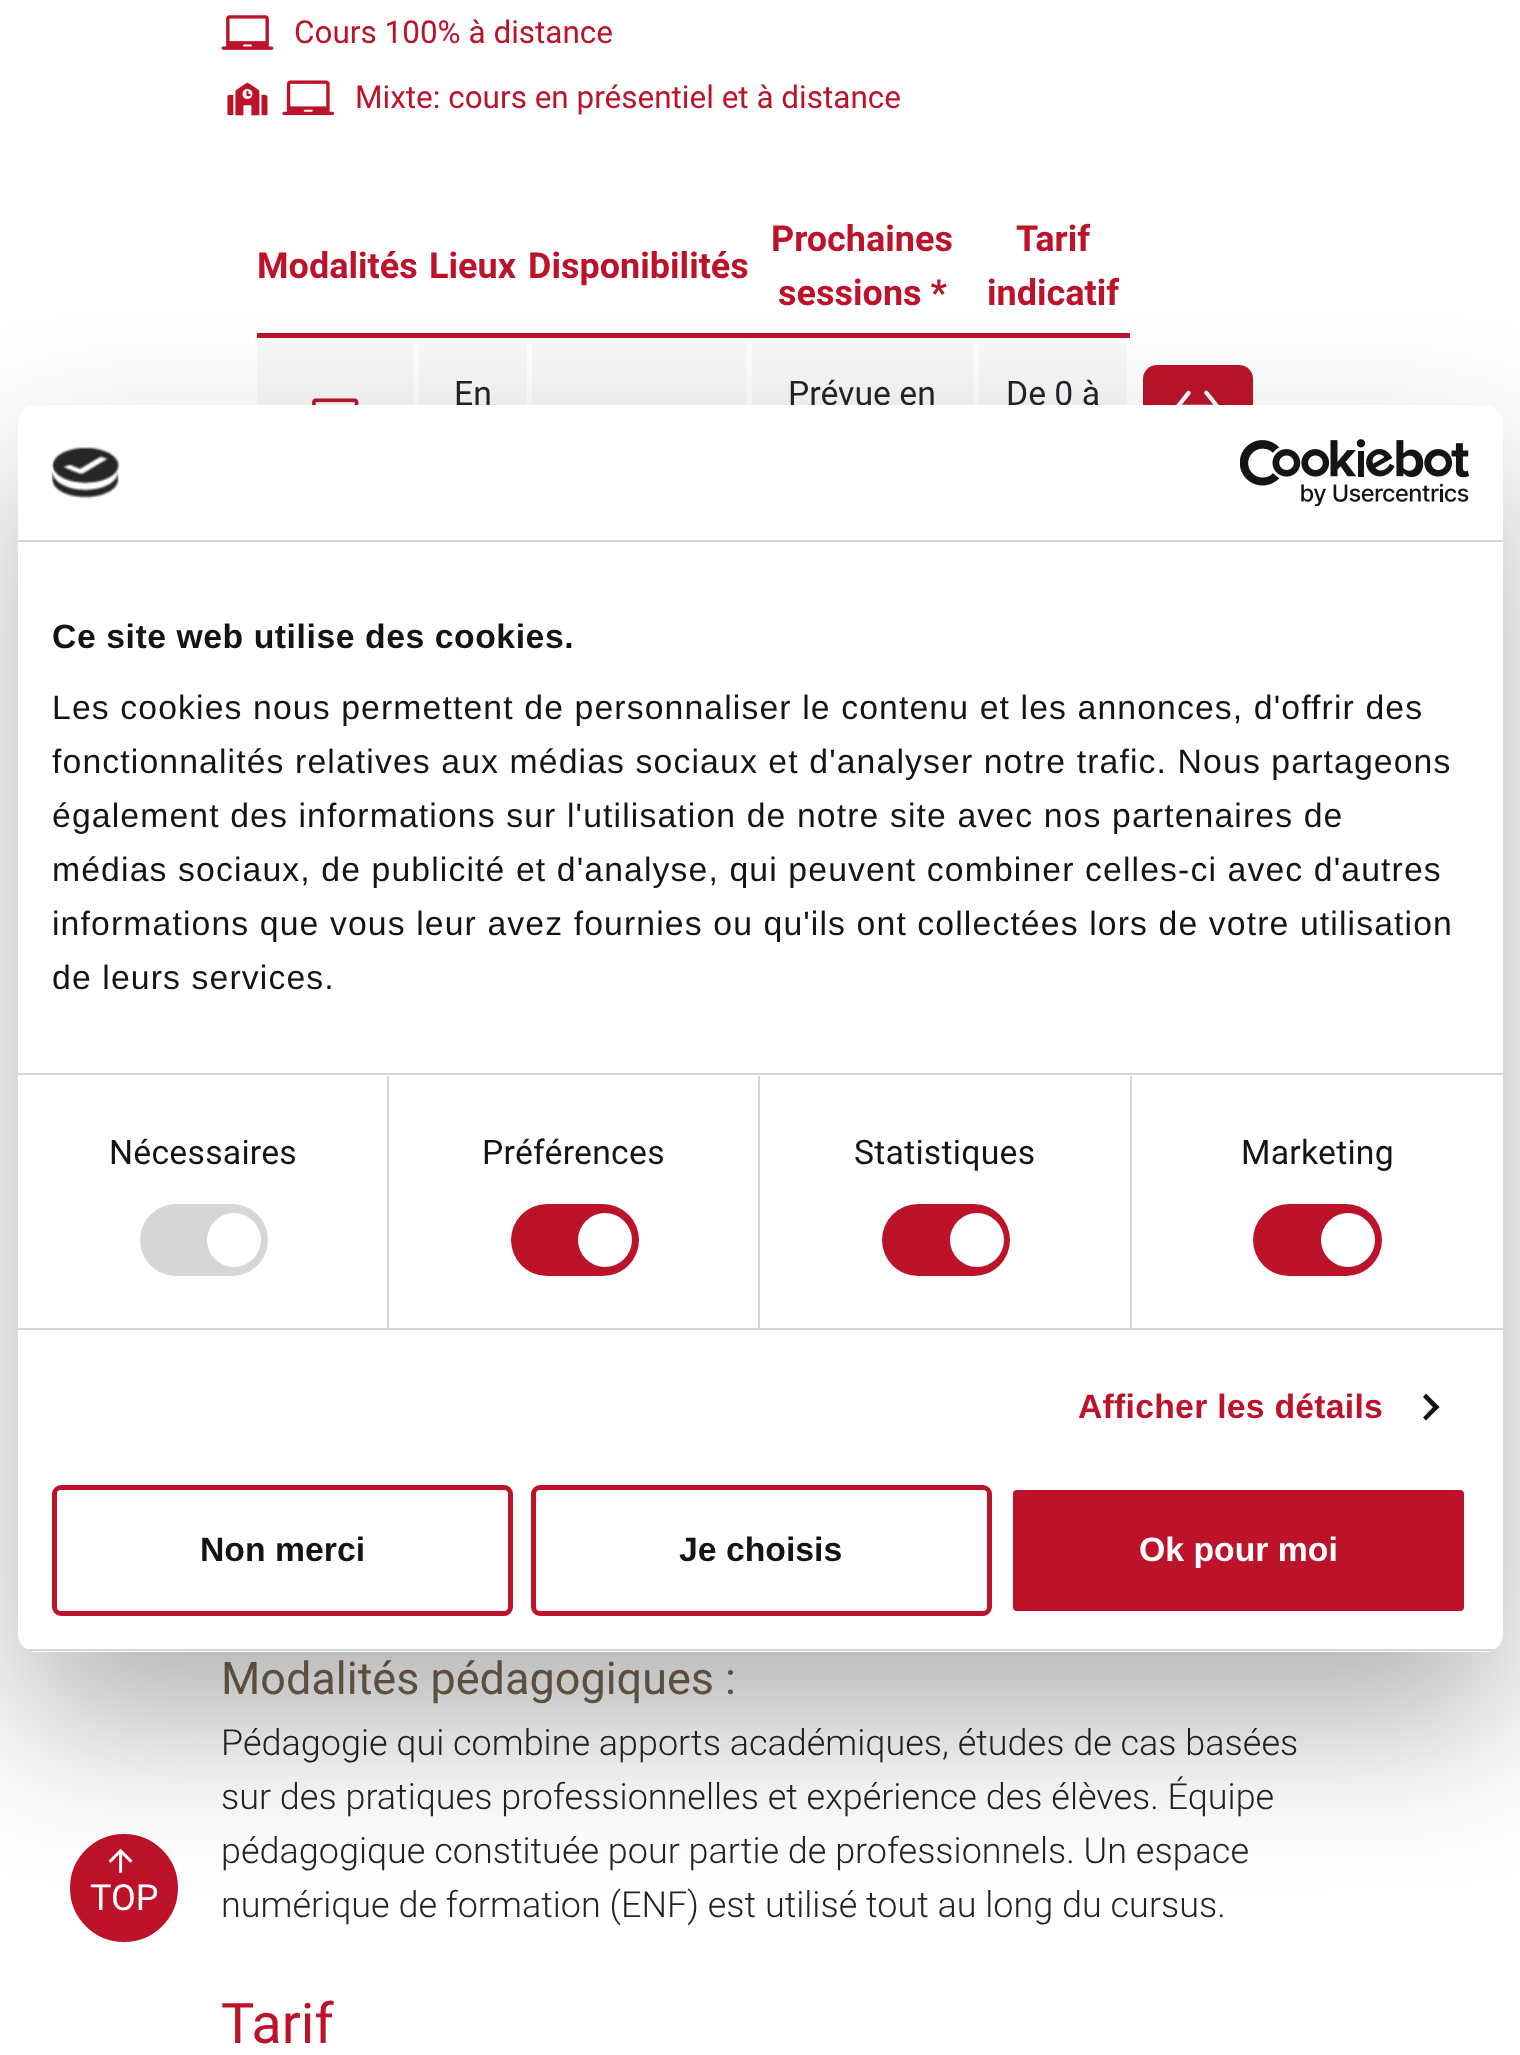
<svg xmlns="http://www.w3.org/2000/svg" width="1520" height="2055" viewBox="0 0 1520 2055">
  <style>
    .t1 { font: 31.5px Roboto; fill: #bc132a; }
    .t2 { font: bold 36px Roboto; fill: #bc132a; }
    .t3 { font: 33.75px Roboto; fill: #212529; }
    .t4 { font: 45px Roboto; fill: #75644e; }
    .t5 { font: 300 36px Roboto; fill: #212529; }
    .t6 { font: 56px Roboto; fill: #bc132a; }
    .t7 { font: bold 33.75px Liberation Sans; letter-spacing: 0.55px; fill: #141414; }
    .t8 { font: 33.75px Liberation Sans; letter-spacing: 1.12px; fill: #141414; }
    .t9 { font: 33.75px Roboto; letter-spacing: 0.25px; fill: #141414; }
    .t10 { font: bold 33.75px Liberation Sans; letter-spacing: 0.25px; fill: #bc132a; }
    .t11 { font: bold 33.75px Liberation Sans; fill: #141414; }
    .t12 { font: bold 33.75px Liberation Sans; fill: #fff; }
    .t13 { font: 36px Roboto; fill: #fff; }
  </style>
  <defs>
    <clipPath id="clip1"><rect x="18" y="405" width="1485" height="1247" rx="18"/></clipPath>
  </defs>
  <rect width="100%" height="100%" fill="#fff"/>
  <image x="221" y="15" width="53" height="35" href="images/1.png"/>
  <text x="294" y="43" class="t1">Cours 100% à distance</text>
  <image x="227" y="82" width="41" height="34" href="images/2.png"/>
  <image x="282" y="80" width="53" height="36" href="images/3.png"/>
  <text x="355" y="108" class="t1">Mixte: cours en présentiel et à distance</text>
  <text x="257" y="278" class="t2">Modalités</text>
  <text x="429" y="278" class="t2">Lieux</text>
  <text x="528" y="278" class="t2">Disponibilités</text>
  <text x="771" y="251" class="t2">Prochaines</text>
  <text x="778" y="305" class="t2">sessions *</text>
  <text x="1016" y="251" class="t2">Tarif</text>
  <text x="987" y="305" class="t2">indicatif</text>
  <rect x="257" y="333" width="873" height="5" fill="#bc132a"/>
  <rect x="257" y="343" width="157" height="62" fill="#f9f8f8"/>
  <image x="312" y="398" width="47" height="7" href="images/4.png"/>
  <rect x="419" y="343" width="108" height="62" fill="#f9f8f8"/>
  <text x="454" y="405" class="t3">En</text>
  <rect x="532" y="343" width="215" height="62" fill="#f9f8f8"/>
  <rect x="752" y="343" width="222" height="62" fill="#f9f8f8"/>
  <text x="788" y="405" class="t3">Prévue en</text>
  <rect x="979" y="343" width="148" height="62" fill="#f9f8f8"/>
  <text x="1006" y="405" class="t3">De 0 à</text>
  <rect x="1143" y="365" width="110" height="110" rx="14" fill="#bc132a"/>
  <image x="1176" y="390" width="43" height="15" href="images/5.png"/>
  <text x="221" y="1694" class="t4">Modalités pédagogiques :</text>
  <text x="221" y="1755" class="t5">Pédagogie qui combine apports académiques, études de cas basées</text>
  <text x="221" y="1809" class="t5">sur des pratiques professionnelles et expérience des élèves. Équipe</text>
  <text x="221" y="1863" class="t5">pédagogique constituée pour partie de professionnels. Un espace</text>
  <text x="221" y="1917" class="t5">numérique de formation (ENF) est utilisé tout au long du cursus.</text>
  <text x="221" y="2043" class="t6">Tarif</text>
  <circle cx="124" cy="1888" r="55" fill="#bc132a" stroke="#fff" stroke-width="2"/>
  <image x="108" y="1848" width="25" height="25" href="images/8.png"/>
  <rect x="18" y="477" width="1485" height="1247" rx="18" fill="#0000004d" filter="blur(76.5px)"/>
  <rect x="18" y="405" width="1485" height="1247" rx="18" fill="#fff"/>
  <rect x="18" y="540" width="1485" height="2" fill="#d6d6d6"/>
  <image x="51" y="447" width="69" height="52" href="images/6.png"/>
  <image x="1240" y="439" width="229" height="67" href="images/7.png"/>
  <rect x="18" y="1073" width="1485" height="2" fill="#d6d6d6"/>
  <text x="52" y="648" class="t7">Ce site web utilise des cookies.</text>
  <text x="52" y="719" class="t8">Les cookies nous permettent de personnaliser le contenu et les annonces, d'offrir des</text>
  <text x="52" y="773" class="t8">fonctionnalités relatives aux médias sociaux et d'analyser notre trafic. Nous partageons</text>
  <text x="52" y="827" class="t8">également des informations sur l'utilisation de notre site avec nos partenaires de</text>
  <text x="52" y="881" class="t8">médias sociaux, de publicité et d'analyse, qui peuvent combiner celles-ci avec d'autres</text>
  <text x="52" y="935" class="t8">informations que vous leur avez fournies ou qu'ils ont collectées lors de votre utilisation</text>
  <text x="52" y="989" class="t8">de leurs services.</text>
  <rect x="18" y="1328" width="1485" height="2" fill="#d6d6d6"/>
  <rect x="387" y="1076" width="2" height="252" fill="#d6d6d6"/>
  <text x="109" y="1164" class="t9">Nécessaires</text>
  <rect x="140" y="1204" width="128" height="72" rx="36" fill="#d6d6d6"/>
  <circle cx="234" cy="1240" r="27" fill="#fff"/>
  <rect x="758" y="1076" width="2" height="252" fill="#d6d6d6"/>
  <text x="482" y="1164" class="t9">Préférences</text>
  <rect x="511" y="1204" width="128" height="72" rx="36" fill="#bc132a"/>
  <circle cx="605" cy="1240" r="27" fill="#fff"/>
  <rect x="1130" y="1076" width="2" height="252" fill="#d6d6d6"/>
  <text x="854" y="1164" class="t9">Statistiques</text>
  <rect x="882" y="1204" width="128" height="72" rx="36" fill="#bc132a"/>
  <circle cx="977" cy="1240" r="27" fill="#fff"/>
  <text x="1241" y="1164" class="t9">Marketing</text>
  <rect x="1253" y="1204" width="129" height="72" rx="36" fill="#bc132a"/>
  <circle cx="1348" cy="1240" r="27" fill="#fff"/>
  <text x="1078" y="1418" class="t10">Afficher les détails</text>
  <path d="M1426 1393.5L1439.5 1407L1436 1410.5L1423 1397Z" fill="#141414"/>
  <path d="M1436 1404L1439.5 1407L1426 1420.5L1423 1417.5Z" fill="#141414"/>
  <g clip-path="url(#clip1)">
    <rect x="18" y="1649" width="1485" height="2" fill="#d6d6d6"/>
  </g>
  <rect x="54.5" y="1487.5" width="456" height="126" rx="6.5" fill="none" stroke="#bc132a" stroke-width="5"/>
  <text x="200" y="1561" class="t11">Non merci</text>
  <rect x="533.5" y="1487.5" width="456" height="126" rx="6.5" fill="none" stroke="#bc132a" stroke-width="5"/>
  <text x="679" y="1561" class="t11">Je choisis</text>
  <rect x="1010.5" y="1487.5" width="456" height="126" rx="6.5" fill="#bc132a" stroke="#fff" stroke-width="5"/>
  <text x="1139" y="1561" class="t12">Ok pour moi</text>
  <text x="90" y="1910" class="t13">TOP</text>
</svg>
